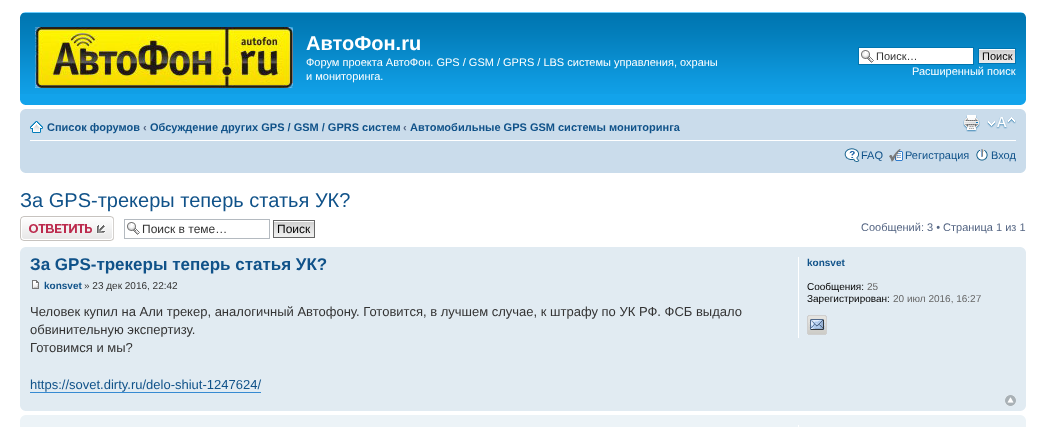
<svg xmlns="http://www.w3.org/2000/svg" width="1046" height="427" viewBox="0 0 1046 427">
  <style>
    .t1 { font: bold 20px Liberation Sans; fill: #fff; }
    .t2 { font: 11px Liberation Sans; fill: #fff; }
    .t3 { font: 11px Liberation Sans; fill: #333; }
    .t4 { font: 11px Liberation Sans; fill: #000; }
    .t5 { font: bold 11px Liberation Sans; fill: #105289; }
    .t6 { font: bold 11px Liberation Sans; fill: #536482; }
    .t7 { font: 11px Liberation Sans; fill: #105289; }
    .t8 { font: 20px Liberation Sans; fill: #105289; }
    .t9 { font: 12px Liberation Sans; fill: #333; }
    .t10 { font: 12px Liberation Sans; fill: #000; }
    .t11 { font: 11px Liberation Sans; fill: #536482; }
    .t12 { font: bold 17px Liberation Sans; fill: #105289; }
    .t13 { font: bold 10px Liberation Sans; fill: #105289; }
    .t14 { font: 10px Liberation Sans; fill: #333; }
    .t15 { font: 13px Liberation Sans; fill: #333; }
    .t16 { font: 13px Liberation Sans; fill: #105289; }
    .t17 { font: 10px Liberation Sans; fill: #000; }
    .t18 { font: 10px Liberation Sans; fill: #666; }
  </style>
  <rect width="100%" height="100%" fill="#fff"/>
  <rect x="20" y="94" width="1006" height="11" fill="#12a3eb"/>
  <image x="20" y="12" width="1006" height="82" href="images/1.png"/>
  <image x="20" y="12" width="5" height="5" href="images/2.png"/>
  <image x="1021" y="12" width="5" height="5" href="images/3.png"/>
  <image x="35" y="27" width="258" height="61" href="images/4.png"/>
  <text x="306" y="50" class="t1">АвтоФон.ru</text>
  <text x="306" y="66" class="t2">Форум проекта АвтоФон. GPS / GSM / GPRS / LBS системы управления, охраны</text>
  <text x="306" y="80" class="t2">и мониторинга.</text>
  <rect x="859" y="48" width="114" height="16" fill="#fff"/>
  <image x="861" y="50" width="13" height="13" href="images/5.png"/>
  <rect x="858.5" y="47.5" width="115" height="17" fill="none" stroke="#0075b0"/>
  <text x="876" y="60" class="t3">Поиск…</text>
  <image x="979" y="49" width="36" height="14" href="images/6.png"/>
  <rect x="978.5" y="48.5" width="37" height="15" fill="none" stroke="#0075b0"/>
  <text x="982" y="60" class="t4">Поиск</text>
  <text x="912" y="75" class="t2">Расширенный поиск</text>
  <image x="20" y="100" width="5" height="5" href="images/7.png"/>
  <image x="1021" y="100" width="5" height="5" href="images/8.png"/>
  <rect x="20" y="109" width="1006" height="64" fill="#cadceb"/>
  <image x="20" y="109" width="5" height="5" href="images/9.png"/>
  <image x="1021" y="109" width="5" height="5" href="images/10.png"/>
  <rect x="30" y="140" width="986" height="1" fill="#fff"/>
  <image x="30" y="121" width="13" height="12" href="images/11.png"/>
  <text x="47" y="131" class="t5">Список форумов</text>
  <text x="143" y="131" class="t6">‹</text>
  <text x="150" y="131" class="t5">Обсуждение других GPS / GSM / GPRS систем</text>
  <text x="403" y="131" class="t6">‹</text>
  <text x="410" y="131" class="t5">Автомобильные GPS GSM системы мониторинга</text>
  <image x="963" y="115" width="17" height="17" href="images/12.png"/>
  <image x="987" y="117" width="29" height="12" href="images/13.png"/>
  <image x="844" y="148" width="16" height="14" href="images/14.png"/>
  <text x="861" y="159" class="t7">FAQ</text>
  <image x="889" y="149" width="14" height="13" href="images/15.png"/>
  <text x="905" y="159" class="t7">Регистрация</text>
  <image x="976" y="149" width="12" height="12" href="images/16.png"/>
  <text x="991" y="159" class="t7">Вход</text>
  <image x="20" y="168" width="5" height="5" href="images/17.png"/>
  <image x="1021" y="168" width="5" height="5" href="images/18.png"/>
  <text x="20" y="207" class="t8">За GPS-трекеры теперь статья УК?</text>
  <image x="20" y="216" width="94" height="25" href="images/19.png"/>
  <image x="127" y="222" width="13" height="13" href="images/5.png"/>
  <rect x="124.5" y="219.5" width="145" height="19" fill="none" stroke="#b4bac0"/>
  <text x="142" y="233" class="t9">Поиск в теме…</text>
  <image x="274" y="221" width="40" height="16" href="images/20.png"/>
  <rect x="273.5" y="220.5" width="41" height="17" fill="none" stroke="#666"/>
  <text x="277" y="233" class="t10">Поиск</text>
  <text x="861" y="231" class="t11">Сообщений: 3 • Страница 1 из 1</text>
  <rect x="20" y="247" width="1006" height="164" fill="#e1ebf2"/>
  <image x="20" y="247" width="5" height="5" href="images/21.png"/>
  <image x="1021" y="247" width="5" height="5" href="images/22.png"/>
  <text x="30" y="270" class="t12">За GPS-трекеры теперь статья УК?</text>
  <image x="32" y="280" width="7" height="9" href="images/23.png"/>
  <text x="44" y="289" class="t13">konsvet</text>
  <text x="84" y="289" class="t14">» 23 дек 2016, 22:42</text>
  <text x="30" y="316" class="t15">Человек купил на Али трекер, аналогичный Автофону. Готовится, в лучшем случае, к штрафу по УК РФ. ФСБ выдало</text>
  <text x="30" y="334" class="t15">обвинительную экспертизу.</text>
  <text x="30" y="352" class="t15">Готовимся и мы?</text>
  <text x="30" y="389" class="t16">https://sovet.dirty.ru/delo-shiut-1247624/</text>
  <rect x="30" y="392" width="231" height="1" fill="#368ad2"/>
  <rect x="798" y="257" width="1" height="81" fill="#fff"/>
  <text x="807" y="266" class="t13">konsvet</text>
  <text x="807" y="290" class="t17">Сообщения:</text>
  <text x="867" y="290" class="t18">25</text>
  <text x="807" y="302" class="t17">Зарегистрирован:</text>
  <text x="893" y="302" class="t18">20 июл 2016, 16:27</text>
  <image x="807" y="315" width="20" height="20" href="images/24.png"/>
  <image x="1005" y="395" width="11" height="11" href="images/25.png"/>
  <image x="20" y="406" width="5" height="5" href="images/26.png"/>
  <image x="1021" y="406" width="5" height="5" href="images/27.png"/>
  <rect x="20" y="415" width="1006" height="12" fill="#ecf3f7"/>
  <image x="20" y="415" width="5" height="5" href="images/28.png"/>
  <image x="1021" y="415" width="5" height="5" href="images/29.png"/>
  <rect x="798" y="425" width="1" height="2" fill="#fff"/>
</svg>
